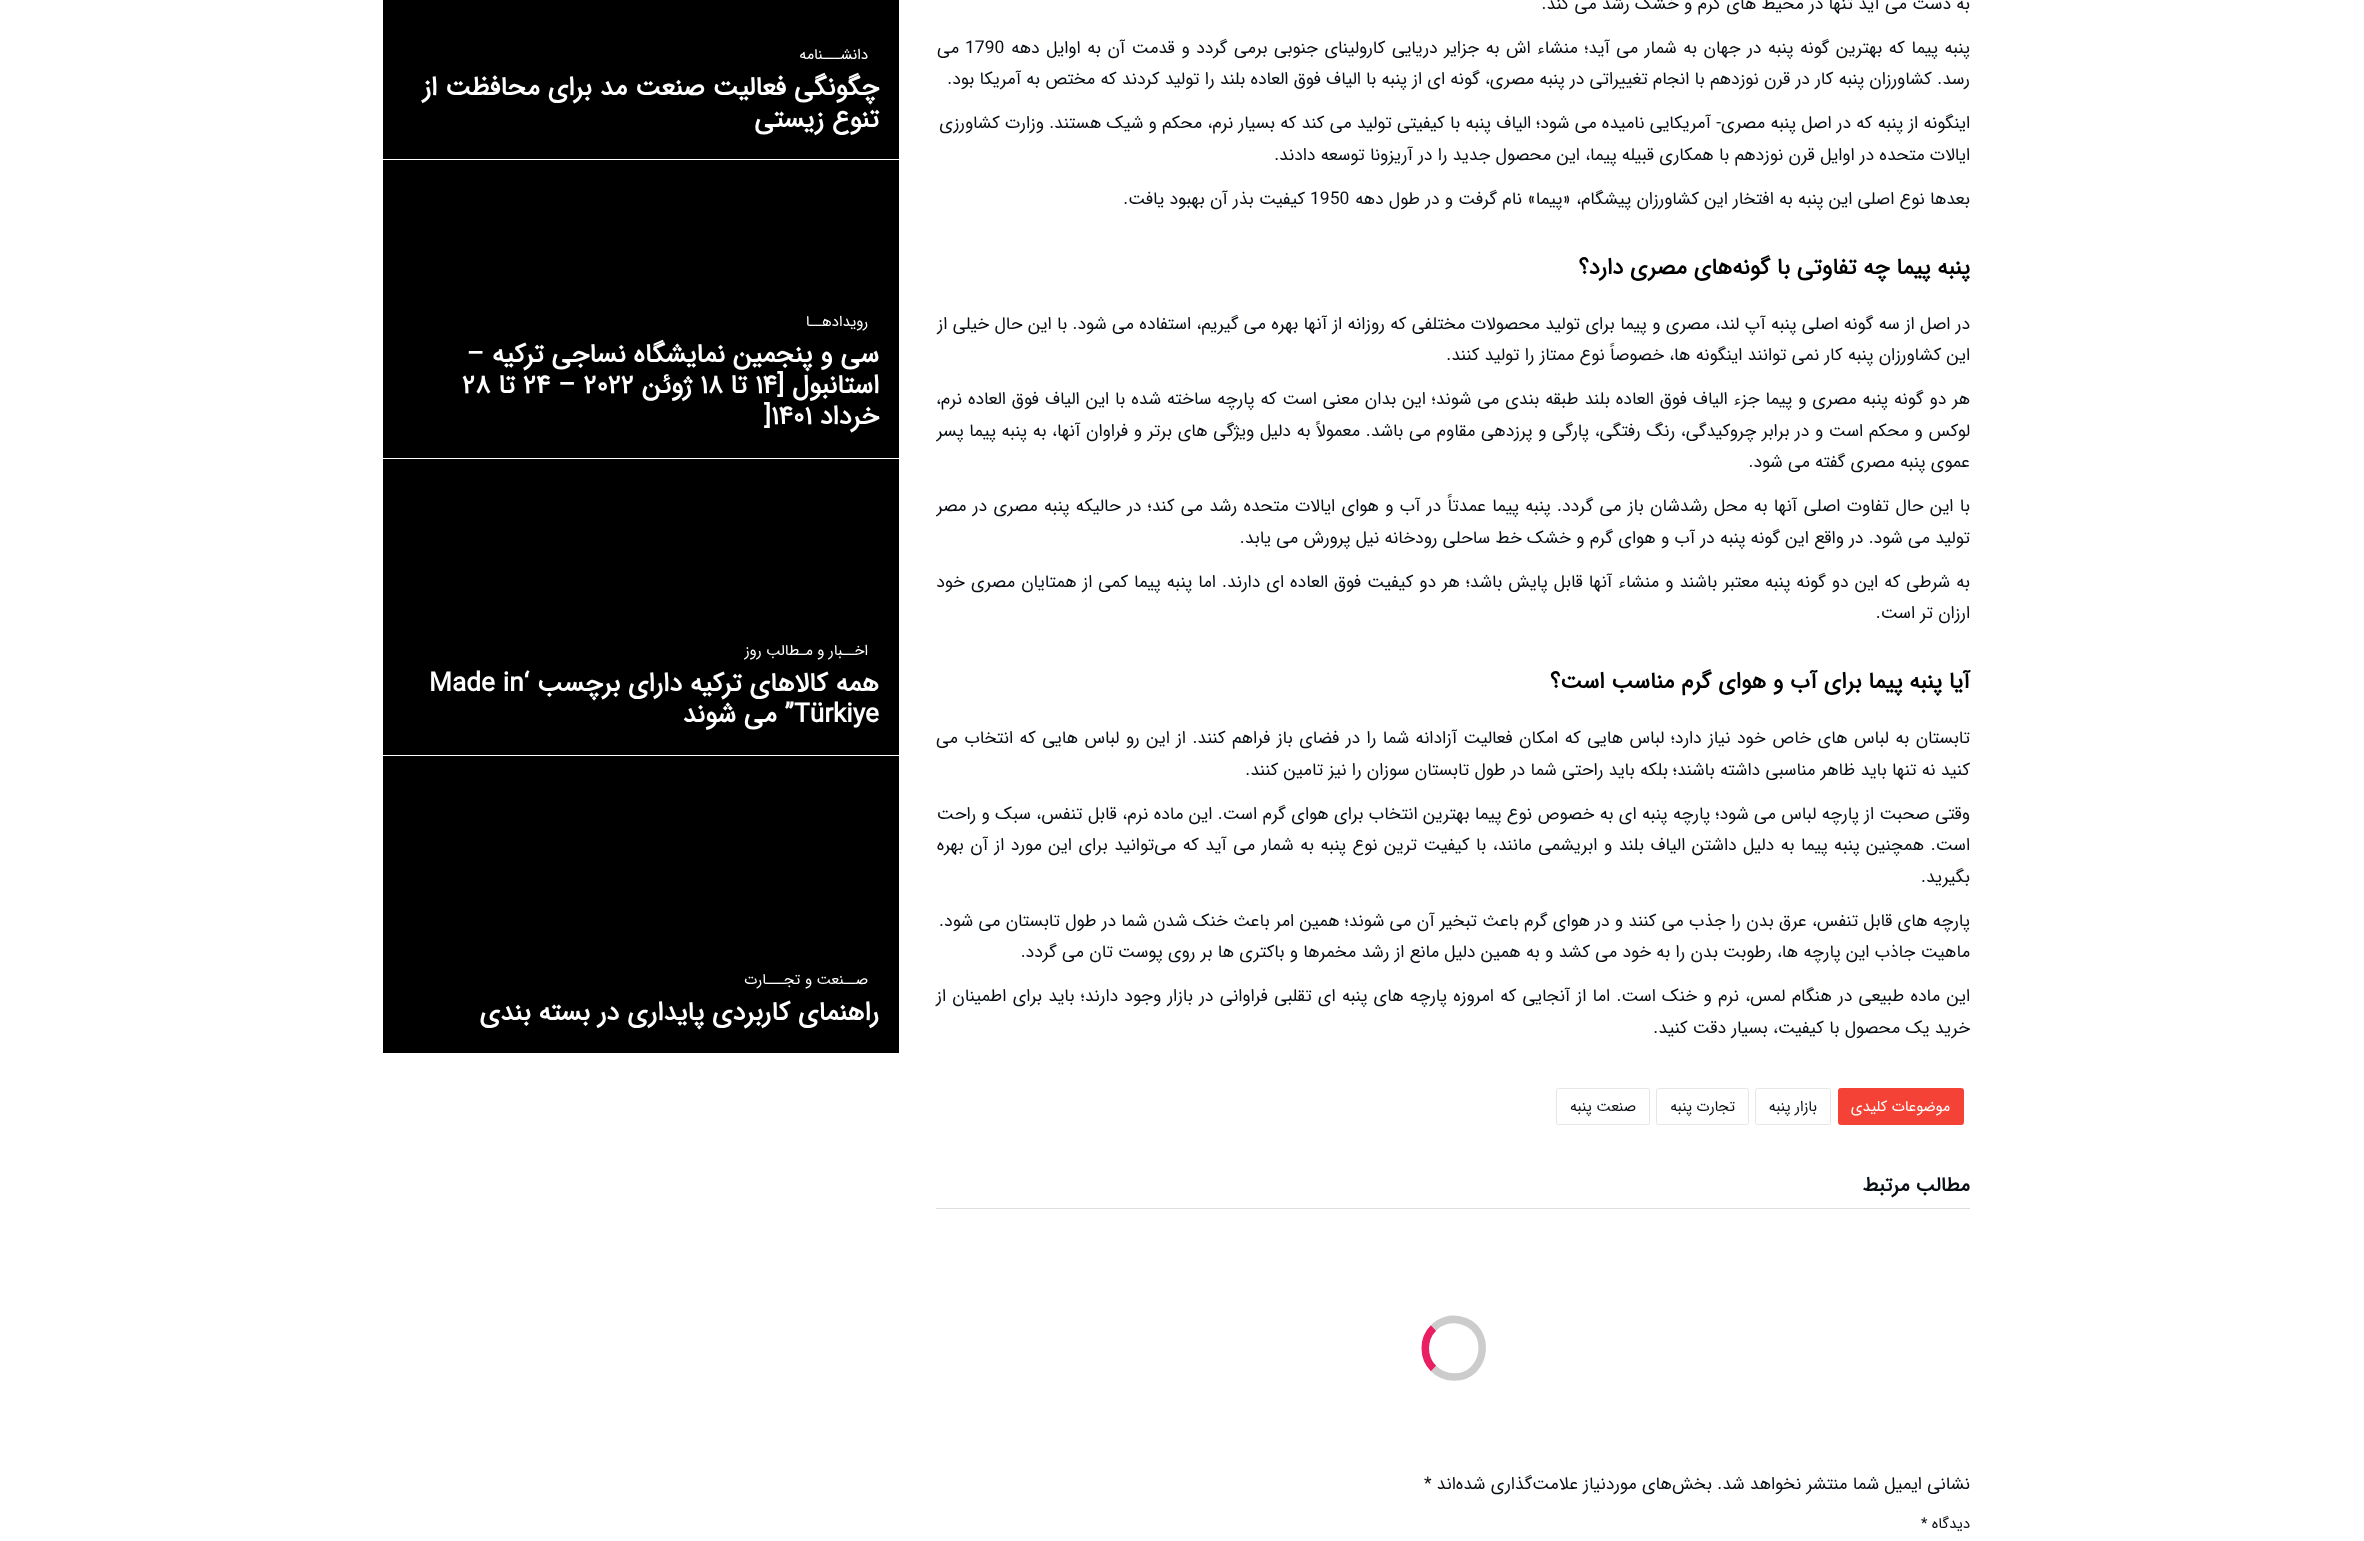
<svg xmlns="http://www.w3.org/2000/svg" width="2364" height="1541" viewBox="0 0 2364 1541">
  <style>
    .t1 { font: 17.5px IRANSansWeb; direction: rtl; fill: #080e14; }
    .t2 { font: 17.5px IRANSansWeb; fill: #080e14; }
    .t3 { font: bold 22.5px IRANSansWeb; direction: rtl; fill: #000; }
    .t4 { font: 15px IRANSansWeb; direction: rtl; fill: #fff; }
    .t5 { font: 15px IRANSansWeb; direction: rtl; fill: #080e14; }
    .t6 { font: bold 20px IRANSansWeb; direction: rtl; fill: #080e14; }
    .t7 { font: 15px IRANSansWeb; fill: #080e14; }
    .t8 { font: bold 26.25px IRANSansWeb; direction: rtl; fill: #fff; }
    .t9 { font: bold 26.25px IRANSansWeb; fill: #fff; }
  </style>
  <defs>
    <clipPath id="clip1"><path d="M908 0H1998V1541H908ZM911-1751H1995V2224H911Z" clip-rule="evenodd"/></clipPath>
  </defs>
  <rect width="100%" height="100%" fill="#fff"/>
  <g clip-path="url(#clip1)">
    <rect x="911" y="-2" width="1084" height="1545" fill="#00000033" filter="blur(0.5px)"/>
  </g>
  <text x="1970" y="9" class="t1">به دست می آید تنها در محیط های گرم و خشک رشد می کند.</text>
  <text x="1970" y="53" word-spacing="1.25" class="t1">پنبه پیما که بهترین گونه پنبه در جهان به شمار می آید؛ منشاء اش به جزایر دریایی کارولینای جنوبی برمی گردد و قدمت آن به اوایل دهه</text>
  <text x="965" y="53" class="t2">1790</text>
  <text x="959" y="53" class="t1">می</text>
  <text x="1970" y="84" class="t1">رسد. کشاورزان پنبه ‌کار در قرن نوزدهم با انجام تغییراتی در پنبه مصری، گونه ای از پنبه با الیاف فوق العاده بلند را تولید کردند که مختص به آمریکا بود.</text>
  <text x="1970" y="128" class="t1">اینگونه از پنبه که در اصل پنبه مصری- آمریکایی نامیده می شود؛ الیاف پنبه با کیفیتی تولید می کند که بسیار نرم، محکم و شیک هستند. وزارت کشاورزی</text>
  <text x="1970" y="160" class="t1">ایالات متحده در اوایل قرن نوزدهم با همکاری قبیله پیما، این محصول جدید را در آریزونا توسعه دادند.</text>
  <text x="1970" y="204" class="t1">بعدها نوع اصلی این پنبه به افتخار این کشاورزان پیشگام، «پیما» نام گرفت و در طول دهه</text>
  <text x="1310" y="204" class="t2">1950</text>
  <text x="1305" y="204" class="t1">کیفیت بذر آن بهبود یافت.</text>
  <text x="1970" y="274" class="t3">پنبه پیما چه تفاوتی با گونه‌های مصری دارد؟</text>
  <text x="1970" y="329" word-spacing="0.1" class="t1">در اصل از سه گونه اصلی پنبه آپ ‌لند، مصری و پیما برای تولید محصولات مختلفی که روزانه از آنها بهره می گیریم، استفاده می شود. با این حال خیلی از</text>
  <text x="1970" y="360" class="t1">این کشاورزان پنبه ‌کار نمی توانند اینگونه ها، خصوصاً نوع ممتاز را تولید کنند.</text>
  <text x="1970" y="404" word-spacing="0.7" class="t1">هر دو گونه پنبه مصری و پیما جزء الیاف فوق ‌العاده بلند طبقه بندی می شوند؛ این بدان معنی است که پارچه ساخته شده با این الیاف فوق العاده نرم،</text>
  <text x="1970" y="436" word-spacing="0.4" class="t1">لوکس و محکم است و در برابر چروکیدگی، رنگ ‌رفتگی، پارگی و پرزدهی مقاوم می باشد. معمولاً به دلیل ویژگی های برتر و فراوان آنها، به پنبه پیما پسر</text>
  <text x="1970" y="467" class="t1">عموی پنبه مصری گفته می شود.</text>
  <text x="1970" y="511" word-spacing="1.1" class="t1">با این حال تفاوت اصلی آنها به محل رشدشان باز می گردد. پنبه پیما عمدتاً در آب و هوای ایالات متحده رشد می کند؛ در حالیکه پنبه مصری در مصر</text>
  <text x="1970" y="543" class="t1">تولید می شود. در واقع این گونه پنبه در آب و هوای گرم و خشک خط ساحلی رودخانه نیل پرورش می یابد.</text>
  <text x="1970" y="587" word-spacing="0.75" class="t1">به شرطی که این دو گونه پنبه معتبر باشند و منشاء آنها قابل پایش باشد؛ هر دو کیفیت فوق العاده ای دارند. اما پنبه پیما کمی از همتایان مصری خود</text>
  <text x="1970" y="618" class="t1">ارزان تر است.</text>
  <text x="1970" y="688" class="t3">آیا پنبه پیما برای آب و هوای گرم مناسب است؟</text>
  <text x="1970" y="743" word-spacing="1.2" class="t1">تابستان به لباس های خاص خود نیاز دارد؛ لباس هایی که امکان فعالیت آزادانه شما را در فضای باز فراهم کنند. از این رو لباس هایی که انتخاب می</text>
  <text x="1970" y="775" class="t1">کنید نه تنها باید ظاهر مناسبی داشته باشند؛ بلکه باید راحتی شما در طول تابستان سوزان را نیز تامین کنند.</text>
  <text x="1970" y="819" word-spacing="0.15" class="t1">وقتی صحبت از پارچه لباس می شود؛ پارچه پنبه ای به خصوص نوع پیما بهترین انتخاب برای هوای گرم است. این ماده نرم، قابل تنفس، سبک و راحت</text>
  <text x="1970" y="850" word-spacing="1.25" class="t1">است. همچنین پنبه پیما به دلیل داشتن الیاف بلند و ابریشمی مانند، با کیفیت ترین نوع پنبه به شمار می آید که می‌توانید برای این مورد از آن بهره</text>
  <text x="1970" y="882" class="t1">بگیرید.</text>
  <text x="1970" y="926" class="t1">پارچه های قابل تنفس، عرق بدن را جذب می کنند و در هوای گرم باعث تبخیر آن می شوند؛ همین امر باعث خنک شدن شما در طول تابستان می شود.</text>
  <text x="1970" y="957" class="t1">ماهیت جاذب این پارچه ها، رطوبت بدن را به خود می کشد و به همین دلیل مانع از رشد مخمرها و باکتری ها بر روی پوست تان می گردد.</text>
  <text x="1970" y="1001" word-spacing="1" class="t1">این ماده طبیعی در هنگام لمس، نرم و خنک است. اما از آنجایی که امروزه پارچه های پنبه ای تقلبی فراوانی در بازار وجود دارند؛ باید برای اطمینان از</text>
  <text x="1970" y="1033" class="t1">خرید یک محصول با کیفیت، بسیار دقت کنید.</text>
  <rect x="1838.5" y="1088.5" width="125" height="36" rx="2" fill="#f44336" stroke="#f44336"/>
  <text x="1950" y="1111" class="t4">موضوعات کلیدی</text>
  <rect x="1755.5" y="1088.5" width="75" height="36" rx="2" fill="none" stroke="#e6e6e6"/>
  <text x="1817" y="1111" class="t5">بازار پنبه</text>
  <rect x="1656.5" y="1088.5" width="92" height="36" rx="2" fill="none" stroke="#e6e6e6"/>
  <text x="1735" y="1111" class="t5">تجارت پنبه</text>
  <rect x="1556.5" y="1088.5" width="93" height="36" rx="2" fill="none" stroke="#e6e6e6"/>
  <text x="1636" y="1111" class="t5">صنعت پنبه</text>
  <rect x="936" y="1208" width="1034" height="1" fill="#ddd"/>
  <text x="1970" y="1191" class="t6">مطالب مرتبط</text>
  <path d="M1433.5 1328C1440 1321 1450 1318 1459.5 1320C1493 1326.5 1488 1377 1454 1377C1446 1377 1439 1374 1433.5 1368.5" fill="none" stroke="#ccc" stroke-width="7.5"/>
  <path d="M1433.5 1368.5C1422.5 1357.5 1422.5 1339 1433.5 1328" fill="none" stroke="#e91e63" stroke-width="7.5"/>
  <text x="1970" y="1489" class="t1">نشانی ایمیل شما منتشر نخواهد شد.</text>
  <text x="1712" y="1489" class="t1">بخش‌های موردنیاز علامت‌گذاری شده‌اند</text>
  <text x="1424" y="1489" class="t2">*</text>
  <text x="1970" y="1528" class="t5">دیدگاه</text>
  <text x="1921" y="1528" class="t7">*</text>
  <rect x="383" y="0" width="516" height="159" fill="#000"/>
  <text x="868" y="59" class="t4">دانشـــنامه</text>
  <text x="879" y="95" class="t8">چگونگی فعالیت صنعت مد برای محافظت از</text>
  <text x="879" y="127" class="t8">تنوع زیستی</text>
  <rect x="383" y="160" width="516" height="298" fill="#000"/>
  <text x="868" y="326" class="t4">رویدادهــا</text>
  <text x="879" y="362" class="t8">سی و پنجمین نمایشگاه نساجی ترکیه –</text>
  <text x="879" y="393" class="t8">استانبول [</text>
  <text x="755" y="393" class="t9">۱۴</text>
  <text x="747" y="393" class="t8">تا</text>
  <text x="700" y="393" class="t9">۱۸</text>
  <text x="692" y="393" class="t8">ژوئن</text>
  <text x="523" y="393" class="t9">۲۴ – ۲۰۲۲</text>
  <text x="515" y="393" class="t8">تا</text>
  <text x="462" y="393" class="t9">۲۸</text>
  <text x="879" y="424" class="t8">خرداد</text>
  <text x="764" y="424" class="t9">]۱۴۰۱</text>
  <rect x="383" y="459" width="516" height="296" fill="#000"/>
  <text x="868" y="655" class="t4">اخــبار و مـطالب روز</text>
  <text x="879" y="691" class="t8">همه کالاهای ترکیه دارای برچسب ‘</text>
  <text x="429" y="691" class="t9">Made in</text>
  <text x="794" y="722" class="t9">Türkiye</text>
  <text x="794" y="722" class="t8">” می شوند</text>
  <rect x="383" y="756" width="516" height="297" fill="#000"/>
  <text x="868" y="984" class="t4">صــنعت و تجـــارت</text>
  <text x="879" y="1020" class="t8">راهنمای کاربردی پایداری در بسته بندی</text>
</svg>
